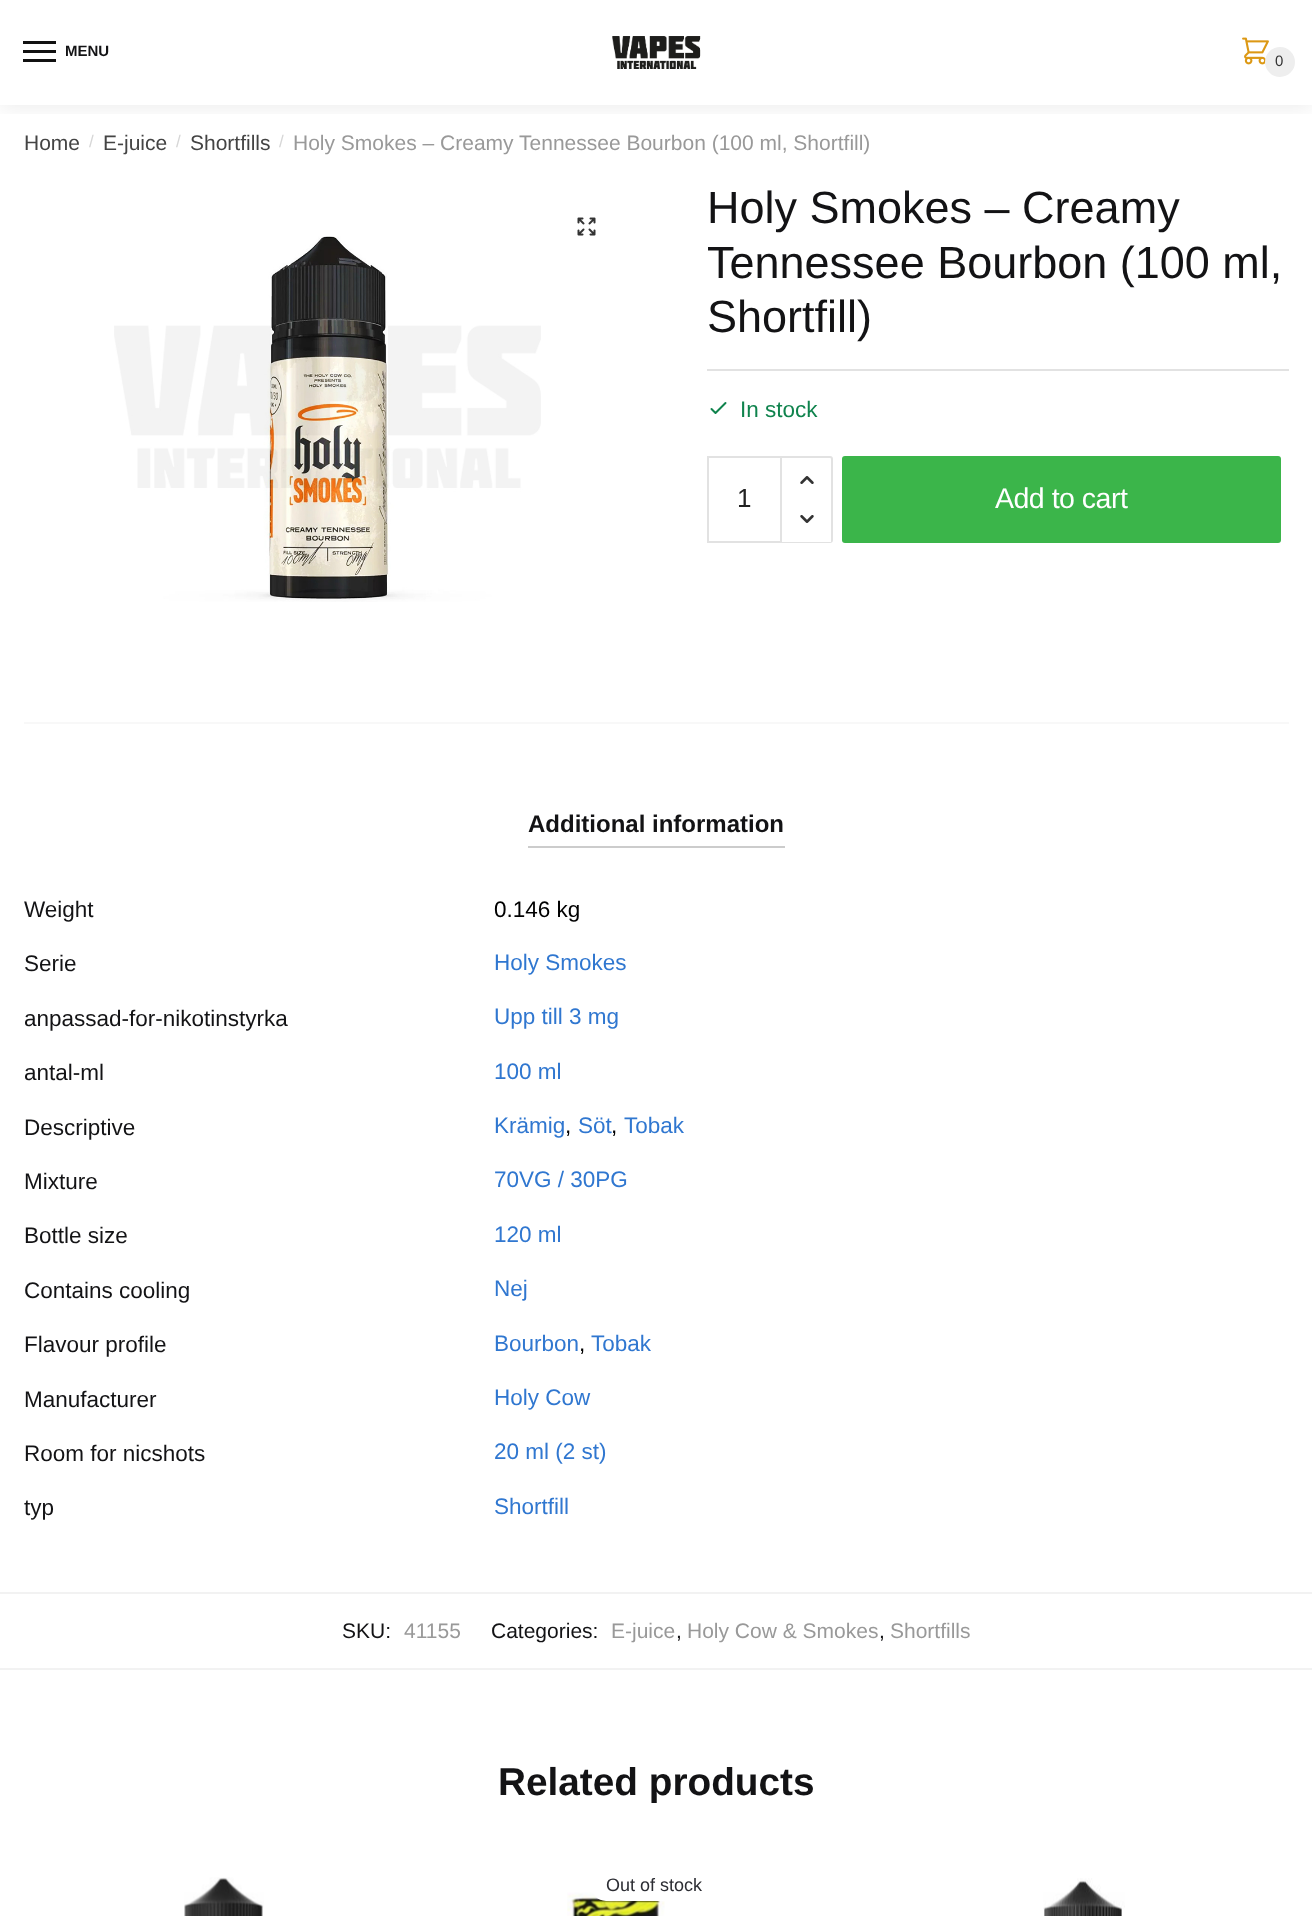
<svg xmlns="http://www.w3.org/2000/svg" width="1312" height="1916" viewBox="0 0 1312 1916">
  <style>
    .t1 { font: bold 15px Liberation Sans; fill: #131315; }
    .t2 { font: 15px Liberation Sans; fill: #333; }
    .t3 { font: 21px Liberation Sans; fill: #444; }
    .t4 { font: 17px Liberation Sans; fill: #d6d6d6; }
    .t5 { font: 21px Liberation Sans; fill: #999; }
    .t6 { font: 45px Liberation Sans; fill: #131315; }
    .t7 { font: 22.5px Liberation Sans; fill: #0f834d; }
    .t8 { font: 26px Liberation Sans; fill: #222; }
    .t9 { font: 28.5px Liberation Sans; letter-spacing: -0.5px; fill: #fff; }
    .t10 { font: bold 24px Liberation Sans; fill: #131315; }
    .t11 { font: 22.5px Liberation Sans; fill: #131315; }
    .t12 { font: 22.5px Liberation Sans; fill: #000; }
    .t13 { font: 22.5px Liberation Sans; fill: #3077d0; }
    .t14 { font: 21px Liberation Sans; fill: #131315; }
    .t15 { font: bold 38.75px Liberation Sans; fill: #131315; }
    .t16 { font: 18px Liberation Sans; fill: #2c2d33; }
  </style>
  <defs>
    <clipPath id="clip1"><rect x="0" y="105" width="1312" height="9"/></clipPath>
  </defs>
  <rect width="100%" height="100%" fill="#fff"/>
  <g clip-path="url(#clip1)">
    <rect x="0" y="2" width="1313" height="105" fill="#00000014" filter="blur(11px)"/>
  </g>
  <rect x="23" y="41" width="33" height="3" fill="#111"/>
  <rect x="23" y="50" width="33" height="3" fill="#111"/>
  <text x="65" y="56" class="t1">MENU</text>
  <rect x="23" y="59" width="33" height="3" fill="#111"/>
  <image x="612" y="36" width="89" height="33" href="images/1.png"/>
  <image x="1242" y="37" width="27" height="28" href="images/2.png"/>
  <circle cx="1280" cy="62" r="15" fill="#eee"/>
  <text x="1275" y="66" class="t2">0</text>
  <text x="24" y="150" class="t3">Home</text>
  <text x="89" y="147" class="t4">/</text>
  <text x="103" y="150" class="t3">E-juice</text>
  <text x="176" y="147" class="t4">/</text>
  <text x="190" y="150" class="t3">Shortfills</text>
  <text x="279" y="147" class="t4">/</text>
  <text x="293" y="150" class="t5">Holy Smokes – Creamy Tennessee Bourbon (100 ml, Shortfill)</text>
  <image x="577" y="217" width="19" height="19" href="images/3.png"/>
  <image x="114" y="236" width="427" height="366" href="images/4.png"/>
  <text x="707" y="223" class="t6">Holy Smokes – Creamy</text>
  <text x="707" y="278" class="t6">Tennessee Bourbon (100 ml,</text>
  <text x="707" y="332" class="t6">Shortfill)</text>
  <rect x="707" y="369" width="582" height="2" fill="#e2e2e2"/>
  <path d="M711.5 409L715.5 413L725.5 403" fill="none" stroke="#0f834d" stroke-width="2" stroke-linecap="round" stroke-linejoin="round"/>
  <text x="740" y="417" class="t7">In stock</text>
  <rect x="708" y="457" width="73" height="85" fill="none" stroke="#e2e2e2" stroke-width="2"/>
  <text x="737" y="507" class="t8">1</text>
  <path d="M781 457H830C831 457 832 458 832 459V540C832 541 831 542 830 542H781Z" fill="#fff" stroke="#e2e2e2" stroke-width="2"/>
  <image x="800" y="476" width="14" height="8" href="images/5.png"/>
  <rect x="782" y="540" width="49" height="2" fill="#fff"/>
  <image x="800" y="515" width="14" height="8" href="images/6.png"/>
  <rect x="842" y="456" width="439" height="87" rx="3" fill="#3bb54a"/>
  <text x="995" y="508" class="t9">Add to cart</text>
  <rect x="24" y="722" width="1265" height="2" fill="#f8f8f8"/>
  <text x="528" y="832" class="t10">Additional information</text>
  <rect x="528" y="846" width="257" height="2" fill="#ccc"/>
  <text x="24" y="917" class="t11">Weight</text>
  <text x="494" y="917" class="t12">0.146 kg</text>
  <text x="24" y="971" class="t11">Serie</text>
  <text x="494" y="970" class="t13">Holy Smokes</text>
  <text x="24" y="1026" class="t11">anpassad-for-nikotinstyrka</text>
  <text x="494" y="1024" class="t13">Upp till 3 mg</text>
  <text x="24" y="1080" class="t11">antal-ml</text>
  <text x="494" y="1079" class="t13">100 ml</text>
  <text x="24" y="1135" class="t11">Descriptive</text>
  <text x="494" y="1133" class="t13">Krämig</text>
  <text x="565" y="1133" class="t12">,</text>
  <text x="578" y="1133" class="t13">Söt</text>
  <text x="611" y="1133" class="t12">,</text>
  <text x="624" y="1133" class="t13">Tobak</text>
  <text x="24" y="1189" class="t11">Mixture</text>
  <text x="494" y="1187" class="t13">70VG / 30PG</text>
  <text x="24" y="1243" class="t11">Bottle size</text>
  <text x="494" y="1242" class="t13">120 ml</text>
  <text x="24" y="1298" class="t11">Contains cooling</text>
  <text x="494" y="1296" class="t13">Nej</text>
  <text x="24" y="1352" class="t11">Flavour profile</text>
  <text x="494" y="1351" class="t13">Bourbon</text>
  <text x="579" y="1351" class="t12">,</text>
  <text x="591" y="1351" class="t13">Tobak</text>
  <text x="24" y="1407" class="t11">Manufacturer</text>
  <text x="494" y="1405" class="t13">Holy Cow</text>
  <text x="24" y="1461" class="t11">Room for nicshots</text>
  <text x="494" y="1459" class="t13">20 ml (2 st)</text>
  <text x="24" y="1515" class="t11">typ</text>
  <text x="494" y="1514" class="t13">Shortfill</text>
  <rect x="0" y="1592" width="1312" height="2" fill="#f2f2f2"/>
  <rect x="0" y="1668" width="1312" height="2" fill="#f2f2f2"/>
  <text x="342" y="1638" class="t14">SKU:</text>
  <text x="404" y="1638" class="t5">41155</text>
  <text x="491" y="1638" class="t14">Categories:</text>
  <text x="611" y="1638" class="t5">E-juice</text>
  <text x="676" y="1638" class="t14">,</text>
  <text x="687" y="1638" class="t5">Holy Cow &amp; Smokes</text>
  <text x="879" y="1638" class="t14">,</text>
  <text x="890" y="1638" class="t5">Shortfills</text>
  <text x="498" y="1795" class="t15">Related products</text>
  <image x="184" y="1877" width="80" height="39" href="images/7.png"/>
  <image x="567" y="1892" width="98" height="24" href="images/8.png"/>
  <rect x="591" y="1871" width="126" height="30" rx="15" fill="#fff"/>
  <text x="606" y="1891" class="t16">Out of stock</text>
  <image x="1043" y="1878" width="82" height="38" href="images/9.png"/>
</svg>
